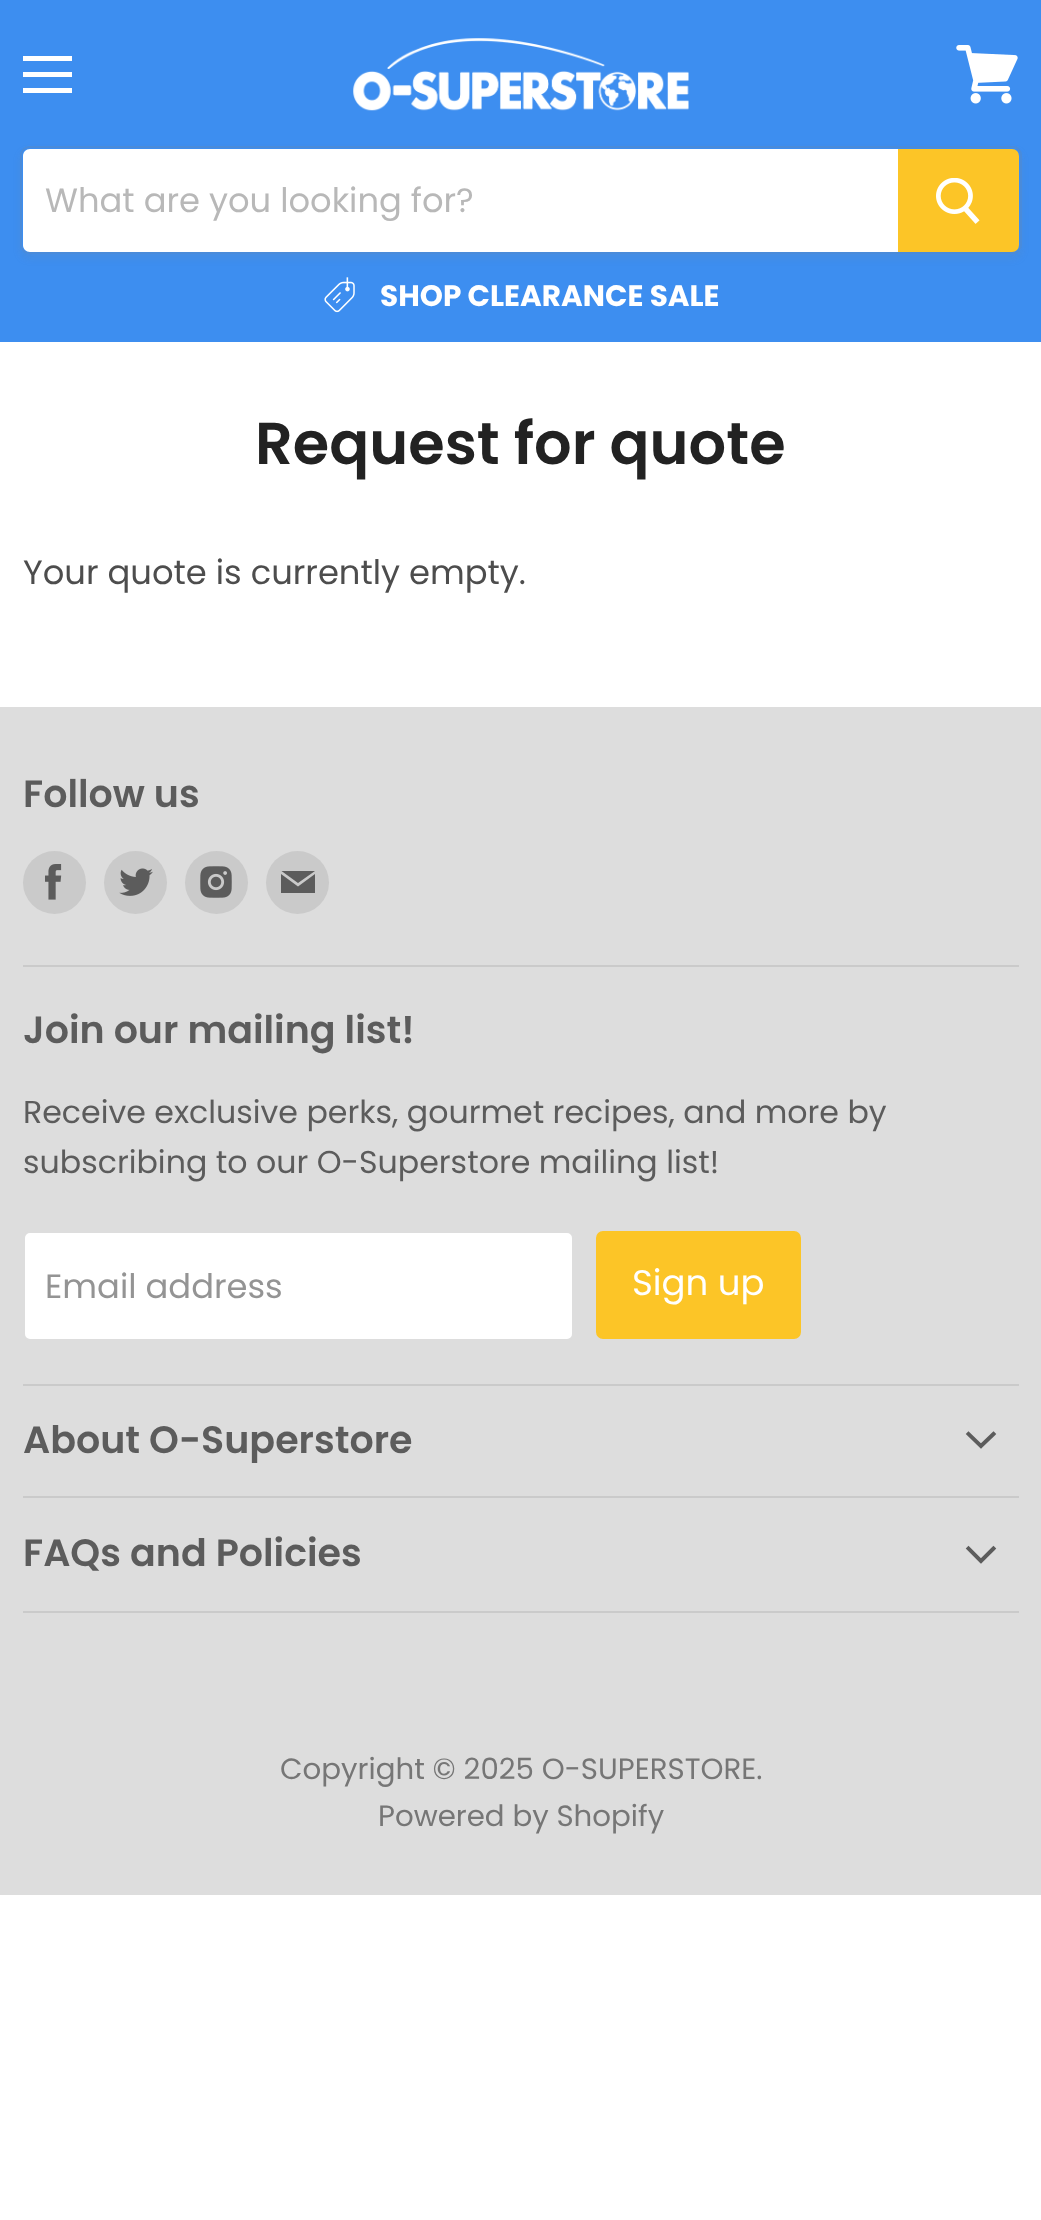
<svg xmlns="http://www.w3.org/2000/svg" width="1041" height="2220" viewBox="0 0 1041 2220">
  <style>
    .t1 { font: 33.75px Poppins; fill: #b8b8b8; }
    .t2 { font: bold 29.5px Poppins; fill: #fff; }
    .t3 { font: 600 59px Poppins; fill: #222; }
    .t4 { font: 33.75px Poppins; fill: #4d4d4d; }
    .t5 { font: 600 38px Poppins; fill: #5c5c5c; }
    .t6 { font: 31.65px Poppins; fill: #5c5c5c; }
    .t7 { font: 33.75px Poppins; fill: #949494; }
    .t8 { font: 35.5px Poppins; fill: #fff; }
    .t9 { font: 29.25px Poppins; fill: #767676; }
  </style>
  <defs>
    <clipPath id="clip1"><path d="M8 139H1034V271H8ZM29 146H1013C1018 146 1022 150 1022 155V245C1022 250 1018 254 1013 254H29C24 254 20 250 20 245V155C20 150 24 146 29 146Z" clip-rule="evenodd"/></clipPath>
  </defs>
  <rect width="100%" height="100%" fill="#fff"/>
  <rect x="0" y="0" width="1041" height="342" fill="#3d8ef0"/>
  <rect x="23" y="56" width="49" height="5" fill="#fff"/>
  <rect x="23" y="72" width="49" height="5" fill="#fff"/>
  <rect x="23" y="88" width="49" height="5" fill="#fff"/>
  <image x="956" y="45" width="62" height="59" href="images/1.png"/>
  <image x="353" y="38" width="336" height="73" href="images/2.png"/>
  <g clip-path="url(#clip1)">
    <rect x="20" y="151" width="1002" height="108" rx="9" fill="#8080801c" filter="blur(3.5px)"/>
  </g>
  <rect x="21" y="147" width="1000" height="106" rx="8" fill="none" stroke="#80808033" stroke-width="2"/>
  <path d="M30 149H898V252H30C26 252 23 249 23 245V156C23 152 26 149 30 149Z" fill="#fff"/>
  <text x="45" y="212" class="t1">What are you looking for?</text>
  <path d="M899 150H1012C1015.5 150 1018 152.5 1018 156V245C1018 248.5 1015.5 251 1012 251H899Z" fill="#fcc527" stroke="#fcc527" stroke-width="2"/>
  <image x="936" y="178" width="44" height="46" href="images/3.png"/>
  <image x="324" y="277" width="31" height="36" href="images/4.png"/>
  <text x="380" y="306" class="t2">SHOP CLEARANCE SALE</text>
  <text x="255" y="464" class="t3">Request for quote</text>
  <text x="23" y="584" class="t4">Your quote is currently empty.</text>
  <rect x="0" y="707" width="1041" height="1188" fill="#ddd"/>
  <rect x="23" y="965" width="996" height="2" fill="#cacaca"/>
  <text x="23" y="807" class="t5">Follow us</text>
  <circle cx="54.5" cy="882.5" r="31.5" fill="#cacaca"/>
  <image x="45" y="864" width="17" height="36" href="images/5.png"/>
  <circle cx="135.5" cy="882.5" r="31.5" fill="#cacaca"/>
  <image x="119" y="868" width="34" height="28" href="images/6.png"/>
  <circle cx="216.5" cy="882.5" r="31.5" fill="#cacaca"/>
  <image x="200" y="866" width="32" height="32" href="images/7.png"/>
  <circle cx="297.5" cy="882.5" r="31.5" fill="#cacaca"/>
  <path d="M315 871H281.5L298 883ZM298 886.5L281 874V893H315V874Z" fill="#5c5c5c" fill-rule="evenodd"/>
  <rect x="23" y="1384" width="996" height="2" fill="#cacaca"/>
  <text x="23" y="1043" class="t5">Join our mailing list!</text>
  <text x="23" y="1123" class="t6">Receive exclusive perks, gourmet recipes, and more by</text>
  <text x="23" y="1173" class="t6">subscribing to our O-Superstore mailing list!</text>
  <rect x="24" y="1232" width="549" height="108" rx="6" fill="#fff" stroke="#ddd" stroke-width="2"/>
  <text x="45" y="1298" class="t7">Email address</text>
  <rect x="597" y="1232" width="203" height="106" rx="6" fill="#fcc527" stroke="#fcc527" stroke-width="2"/>
  <text x="632" y="1295" class="t8">Sign up</text>
  <rect x="23" y="1496" width="996" height="2" fill="#cacaca"/>
  <text x="23" y="1453" class="t5">About O-Superstore</text>
  <path d="M981 1446L993.5 1434M981 1446L968.5 1434" fill="none" stroke="#5c5c5c" stroke-width="3.9" stroke-linecap="square"/>
  <rect x="23" y="1611" width="996" height="2" fill="#cacaca"/>
  <text x="23" y="1566" class="t5">FAQs and Policies</text>
  <path d="M981 1561L993.5 1548.5M981 1561L968.5 1548.5" fill="none" stroke="#5c5c5c" stroke-width="3.9" stroke-linecap="square"/>
  <text x="280" y="1779" class="t9">Copyright © 2025 O-SUPERSTORE.</text>
  <text x="378" y="1826" class="t9">Powered by Shopify</text>
</svg>
